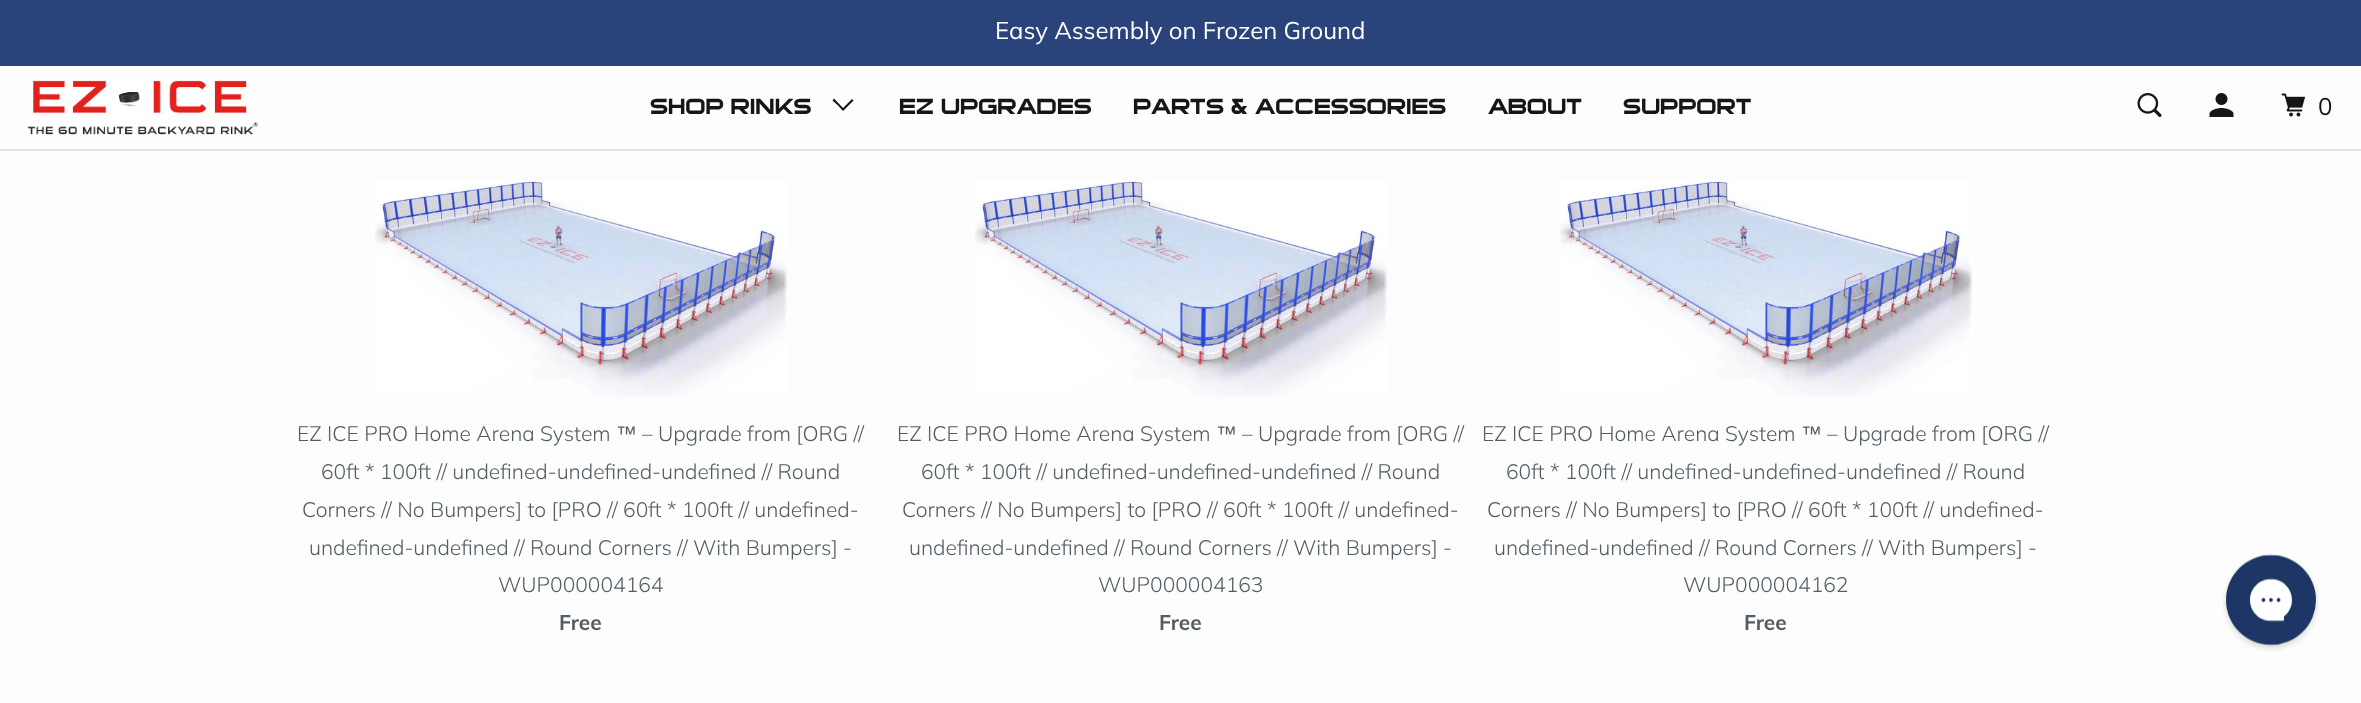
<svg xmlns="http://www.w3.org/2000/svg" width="2361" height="703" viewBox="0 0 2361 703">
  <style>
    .t1 { font: 24px Muli; fill: #fff; }
    .t2 { font: 21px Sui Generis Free; fill: #171515; }
    .t3 { font: 24px Muli; fill: #171515; }
    .t4 { font: 300 21px Muli; fill: #525d63; }
    .t5 { font: 21px Liberation Sans; fill: #525d63; }
    .t6 { font: bold 21px Muli; fill: #525d63; }
  </style>
  <rect width="100%" height="100%" fill="#fdfdfd"/>
  <rect x="0" y="0" width="2361" height="66" fill="#2b437b"/>
  <text x="995" y="39" class="t1">Easy Assembly on Frozen Ground</text>
  <rect x="0" y="149" width="2361" height="2" fill="#e0e3e7"/>
  <image x="27" y="80" width="231" height="55" href="images/1.png"/>
  <text x="650" y="114" class="t2">SHOP RINKS</text>
  <path d="M838 105.5L832.5 100.5L834 98.5L843 108L852 99L853.5 100.5L843 111Z" fill="#171515"/>
  <text x="899" y="114" class="t2">EZ UPGRADES</text>
  <text x="1133" y="114" class="t2">PARTS &amp; ACCESSORIES</text>
  <text x="1488" y="114" class="t2">ABOUT</text>
  <text x="1623" y="114" class="t2">SUPPORT</text>
  <image x="2137" y="93" width="25" height="24" href="images/2.png"/>
  <image x="2209" y="93" width="25" height="24" href="images/3.png"/>
  <image x="2281" y="93" width="24" height="24" href="images/4.png"/>
  <text x="2318" y="115" class="t3">0</text>
  <image x="375" y="180" width="413" height="217" href="images/5.png"/>
  <text x="297" y="441" class="t4">EZ ICE PRO Home Arena System</text>
  <text x="616" y="441" class="t5">™</text>
  <text x="642" y="441" class="t4">– Upgrade from [ORG //</text>
  <text x="321" y="479" class="t4">60ft * 100ft // undefined-undefined-undefined // Round</text>
  <text x="302" y="517" class="t4">Corners // No Bumpers] to [PRO // 60ft * 100ft // undefined-</text>
  <text x="309" y="555" class="t4">undefined-undefined // Round Corners // With Bumpers] -</text>
  <text x="498" y="592" class="t4">WUP000004164</text>
  <text x="559" y="630" class="t6">Free</text>
  <image x="975" y="180" width="413" height="217" href="images/5.png"/>
  <text x="897" y="441" class="t4">EZ ICE PRO Home Arena System</text>
  <text x="1216" y="441" class="t5">™</text>
  <text x="1242" y="441" class="t4">– Upgrade from [ORG //</text>
  <text x="921" y="479" class="t4">60ft * 100ft // undefined-undefined-undefined // Round</text>
  <text x="902" y="517" class="t4">Corners // No Bumpers] to [PRO // 60ft * 100ft // undefined-</text>
  <text x="909" y="555" class="t4">undefined-undefined // Round Corners // With Bumpers] -</text>
  <text x="1098" y="592" class="t4">WUP000004163</text>
  <text x="1159" y="630" class="t6">Free</text>
  <image x="1560" y="180" width="413" height="217" href="images/5.png"/>
  <text x="1482" y="441" class="t4">EZ ICE PRO Home Arena System</text>
  <text x="1801" y="441" class="t5">™</text>
  <text x="1827" y="441" class="t4">– Upgrade from [ORG //</text>
  <text x="1506" y="479" class="t4">60ft * 100ft // undefined-undefined-undefined // Round</text>
  <text x="1487" y="517" class="t4">Corners // No Bumpers] to [PRO // 60ft * 100ft // undefined-</text>
  <text x="1494" y="555" class="t4">undefined-undefined // Round Corners // With Bumpers] -</text>
  <text x="1683" y="592" class="t4">WUP000004162</text>
  <text x="1744" y="630" class="t6">Free</text>
  <image x="2223" y="554" width="96" height="97" href="images/6.png"/>
</svg>
